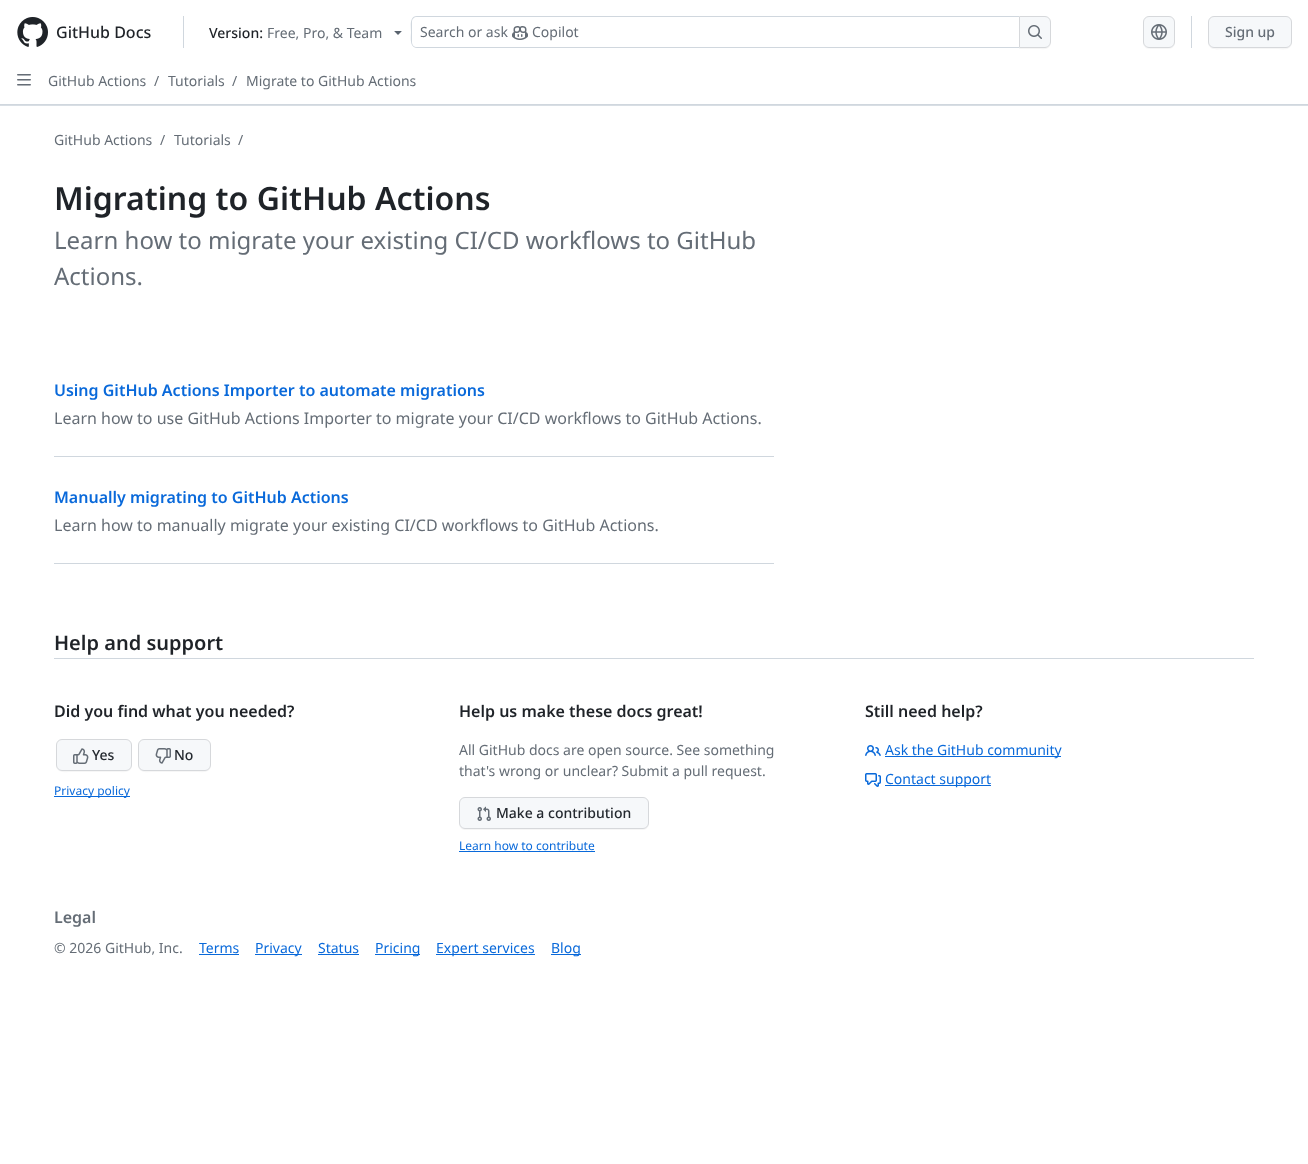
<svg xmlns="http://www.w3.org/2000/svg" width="1308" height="1164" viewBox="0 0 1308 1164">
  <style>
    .t1 { font: 500 16px Noto Sans; fill: #1f2328; }
    .t2 { font: 500 14px Noto Sans; fill: #1f2328; }
    .t3 { font: 14px Noto Sans; fill: #656d76; }
    .t4 { font: 500 14px Noto Sans; fill: #656d76; }
    .t5 { font: 600 32px Noto Sans; fill: #1f2328; }
    .t6 { font: 24px Noto Sans; fill: #656d76; }
    .t7 { font: 600 16px Noto Sans; fill: #0969da; }
    .t8 { font: 16px Noto Sans; fill: #656d76; }
    .t9 { font: 600 20px Noto Sans; fill: #1f2328; }
    .t10 { font: 600 16px Noto Sans; fill: #1f2328; }
    .t11 { font: 500 14px Noto Sans; fill: #24292f; }
    .t12 { font: 12px Noto Sans; fill: #0969da; }
    .t13 { font: 14px Noto Sans; fill: #0969da; }
    .t14 { font: 600 16px Noto Sans; fill: #656d76; }
  </style>
  <rect width="100%" height="100%" fill="#fff"/>
  <rect x="0" y="105" width="1308" height="1" fill="#d8dee4"/>
  <rect x="0" y="104" width="1308" height="1" fill="#d0d7de"/>
  <image x="17" y="17" width="31" height="30" href="images/1.png"/>
  <text x="56" y="38" class="t1">GitHub Docs</text>
  <rect x="183" y="16" width="1" height="32" fill="#d0d7de"/>
  <text x="209" y="38" class="t2">Version:</text>
  <text x="267" y="38" class="t3">Free, Pro, &amp; Team</text>
  <image x="394" y="31" width="8" height="4" href="images/2.png"/>
  <path d="M417 16H1019V48H417C409 48 411 37 411 32C411 27 409 16 417 16ZM417 17H1019V47H417C414 47 412 45 412 42V22C412 19 414 17 417 17Z" fill="#d0d7de" fill-rule="evenodd"/>
  <text x="420" y="37" class="t3">Search or ask</text>
  <image x="512" y="26" width="16" height="14" href="images/3.png"/>
  <text x="532" y="37" class="t3">Copilot</text>
  <path d="M1019 48V49H1036.5C1042.5 49 1051 51 1051 42C1051 45.5 1048.5 48 1045 48Z" fill="#f6f6f6"/>
  <path d="M1019.5 16.5H1045C1048 16.5 1050.5 19 1050.5 22V42C1050.5 45 1048 47.5 1045 47.5H1019.5Z" fill="#f6f8fa" stroke="#d6d8db"/>
  <image x="1028" y="25" width="14" height="14" href="images/4.png"/>
  <path d="M1143 42C1143 48.5 1147 49 1152.5 49H1165.5C1171 49 1175 48.5 1175 42C1175 45.5 1172.5 48 1169 48H1149C1145.5 48 1143 45.5 1143 42Z" fill="#f6f6f6"/>
  <rect x="1143.5" y="16.5" width="31" height="31" rx="5.5" fill="#f6f8fa" stroke="#d6d8db"/>
  <image x="1151" y="24" width="16" height="16" href="images/5.png"/>
  <rect x="1191" y="16" width="1" height="32" fill="#d0d7de"/>
  <path d="M1208 42C1208 52 1219 49 1226 49H1274C1281 49 1292 52 1292 42C1292 45 1289 48 1286 48H1214C1211 48 1208 45 1208 42Z" fill="#f6f6f6"/>
  <rect x="1208.5" y="16.5" width="83" height="31" rx="5.5" fill="#f6f8fa" stroke="#d6d8db"/>
  <text x="1225" y="37" class="t4">Sign up</text>
  <image x="17" y="74" width="14" height="12" href="images/6.png"/>
  <text x="48" y="86" class="t3">GitHub Actions</text>
  <text x="154" y="86" class="t3">/</text>
  <text x="168" y="86" class="t3">Tutorials</text>
  <text x="232" y="86" class="t3">/</text>
  <text x="246" y="86" class="t3">Migrate to GitHub Actions</text>
  <text x="54" y="145" class="t3">GitHub Actions</text>
  <text x="160" y="145" class="t3">/</text>
  <text x="174" y="145" class="t3">Tutorials</text>
  <text x="238" y="145" class="t3">/</text>
  <text x="54" y="210" class="t5">Migrating to GitHub Actions</text>
  <text x="54" y="249" class="t6">Learn how to migrate your existing CI/CD workflows to GitHub</text>
  <text x="54" y="285" class="t6">Actions.</text>
  <rect x="54" y="456" width="720" height="1" fill="#d0d7de"/>
  <text x="54" y="396" class="t7">Using GitHub Actions Importer to automate migrations</text>
  <text x="54" y="424" class="t8">Learn how to use GitHub Actions Importer to migrate your CI/CD workflows to GitHub Actions.</text>
  <rect x="54" y="563" width="720" height="1" fill="#d0d7de"/>
  <text x="54" y="503" class="t7">Manually migrating to GitHub Actions</text>
  <text x="54" y="531" class="t8">Learn how to manually migrate your existing CI/CD workflows to GitHub Actions.</text>
  <text x="54" y="650" class="t9">Help and support</text>
  <rect x="54" y="658" width="1200" height="1" fill="#d0d7de"/>
  <text x="54" y="717" class="t10">Did you find what you needed?</text>
  <path d="M56 765C56 774 66 772 73 772H115C122 772 132 774 132 765C132 768 129 771 126 771H62C59 771 56 768 56 765Z" fill="#f6f6f6"/>
  <rect x="56.5" y="739.5" width="75" height="31" rx="5.5" fill="#f6f8fa" stroke="#d6d8db"/>
  <image x="73" y="748" width="16" height="16" href="images/7.png"/>
  <text x="92" y="760" class="t11">Yes</text>
  <path d="M138 765C138 774 148 772 154 772H195C201 772 211 774 211 765C211 768 208 771 205 771H144C141 771 138 768 138 765Z" fill="#f6f6f6"/>
  <rect x="138.5" y="739.5" width="72" height="31" rx="5.5" fill="#f6f8fa" stroke="#d6d8db"/>
  <image x="155" y="748" width="16" height="16" href="images/8.png"/>
  <text x="174" y="760" class="t11">No</text>
  <rect x="54" y="796" width="76" height="1" fill="#0969da"/>
  <text x="54" y="795" class="t12">Privacy policy</text>
  <text x="459" y="717" class="t10">Help us make these docs great!</text>
  <text x="459" y="755" class="t3">All GitHub docs are open source. See something</text>
  <text x="459" y="776" class="t3">that's wrong or unclear? Submit a pull request.</text>
  <path d="M459 823V824C459 827 462 830 465 830H643C646 830 649 827 649 824V823C649 826 646 829 643 829H465C462 829 459 826 459 823Z" fill="#f6f6f6"/>
  <rect x="459.5" y="797.5" width="189" height="31" rx="5.5" fill="#f6f8fa" stroke="#d6d8db"/>
  <image x="477" y="806" width="14" height="15" href="images/9.png"/>
  <text x="496" y="818" class="t11">Make a contribution</text>
  <text x="459" y="850" class="t12">Learn how to contribute</text>
  <rect x="459" y="851" width="136" height="1" fill="#0969da"/>
  <text x="865" y="717" class="t10">Still need help?</text>
  <image x="865" y="745" width="16" height="11" href="images/10.png"/>
  <rect x="885" y="756" width="176" height="1" fill="#0969da"/>
  <text x="885" y="755" class="t13">Ask the GitHub community</text>
  <image x="865" y="773" width="16" height="14" href="images/11.png"/>
  <rect x="885" y="785" width="106" height="1" fill="#0969da"/>
  <text x="885" y="784" class="t13">Contact support</text>
  <text x="54" y="923" class="t14">Legal</text>
  <text x="54" y="953" class="t3">© 2026 GitHub, Inc.</text>
  <text x="199" y="953" class="t13">Terms</text>
  <rect x="199" y="954" width="40" height="1" fill="#0969da"/>
  <rect x="255" y="954" width="47" height="1" fill="#0969da"/>
  <text x="255" y="953" class="t13">Privacy</text>
  <text x="318" y="953" class="t13">Status</text>
  <rect x="318" y="954" width="41" height="1" fill="#0969da"/>
  <rect x="375" y="954" width="45" height="1" fill="#0969da"/>
  <text x="375" y="953" class="t13">Pricing</text>
  <rect x="436" y="954" width="99" height="1" fill="#0969da"/>
  <text x="436" y="953" class="t13">Expert services</text>
  <rect x="551" y="954" width="30" height="1" fill="#0969da"/>
  <text x="551" y="953" class="t13">Blog</text>
</svg>
